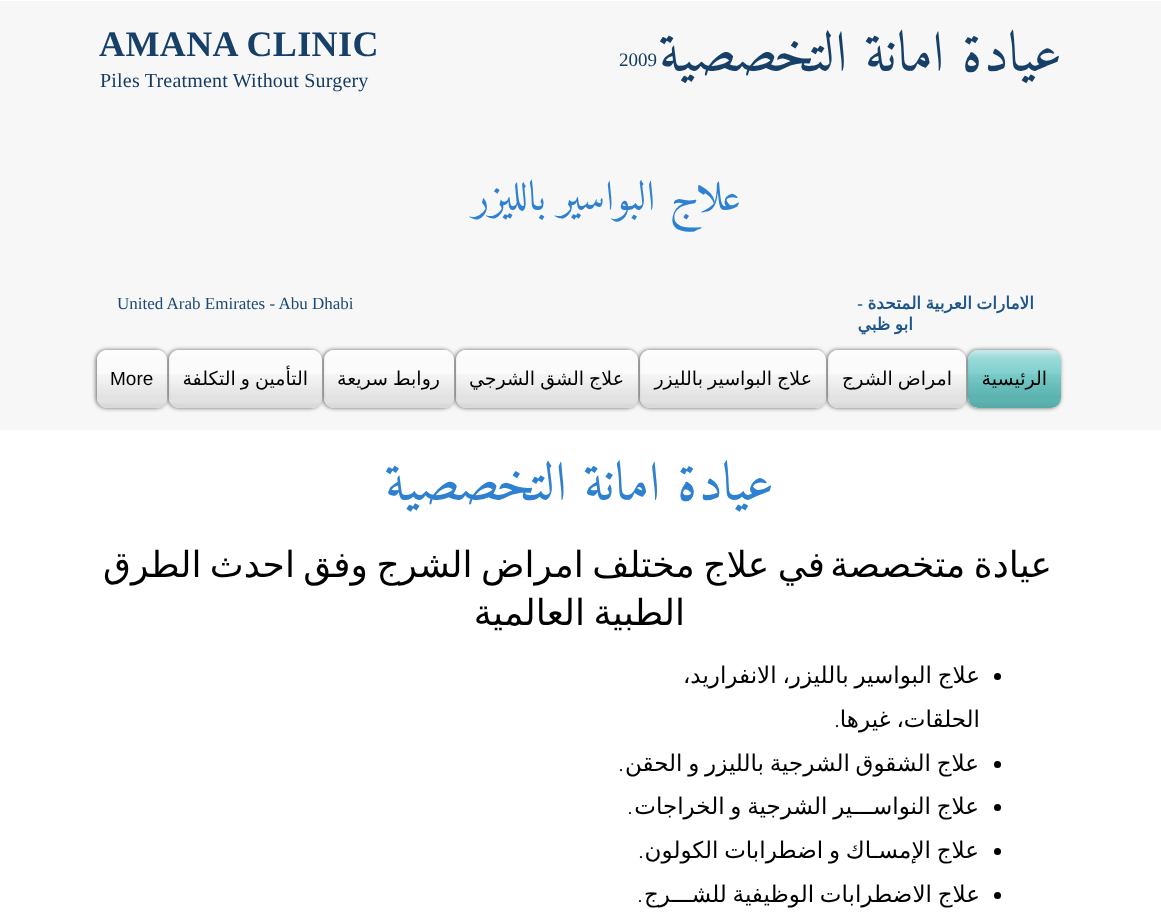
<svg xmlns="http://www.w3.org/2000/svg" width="1161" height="921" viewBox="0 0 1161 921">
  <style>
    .t1 { font: 57px Amiri; direction: rtl; fill: #174069; }
    .t2 { font: bold 36px Liberation Serif; letter-spacing: 0.4px; fill: #174069; }
    .t3 { font: 19px Liberation Serif; fill: #153c60; }
    .t4 { font: 20px Liberation Serif; letter-spacing: 0.2px; fill: #153c60; }
    .t5 { font: 42px Amiri; direction: rtl; fill: #2e81d1; }
    .t6 { font: bold 17px DejaVu Sans; direction: rtl; fill: #1e568a; }
    .t7 { font: bold 17px Liberation Serif; direction: rtl; fill: #1e568a; }
    .t8 { font: 17px Liberation Serif; fill: #1a4975; }
    .t9 { font: 19px DejaVu Sans; direction: rtl; fill: #000; }
    .t10 { font: 19px Liberation Sans; fill: #000; }
    .t11 { font: 55px Amiri; direction: rtl; fill: #2e81d1; }
    .t12 { font: 36px DejaVu Sans; direction: rtl; fill: #000; }
    .t13 { font: 23px DejaVu Sans; direction: rtl; fill: #000; }
    .t14 { font: 300 23px 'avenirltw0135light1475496'; direction: rtl; fill: #000; }
  </style>
  <defs>
    <clipPath id="clip1"><path d="M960 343H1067V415H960ZM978 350H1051C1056.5 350 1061 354.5 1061 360V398C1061 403.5 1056.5 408 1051 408H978C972.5 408 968 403.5 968 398V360C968 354.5 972.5 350 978 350Z" clip-rule="evenodd"/></clipPath>
    <clipPath id="clip2"><path d="M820 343H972V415H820ZM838 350H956C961.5 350 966 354.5 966 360V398C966 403.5 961.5 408 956 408H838C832.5 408 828 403.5 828 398V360C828 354.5 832.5 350 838 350Z" clip-rule="evenodd"/></clipPath>
    <clipPath id="clip3"><path d="M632 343H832V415H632ZM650 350H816C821.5 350 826 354.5 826 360V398C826 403.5 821.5 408 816 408H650C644.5 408 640 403.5 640 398V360C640 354.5 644.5 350 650 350Z" clip-rule="evenodd"/></clipPath>
    <clipPath id="clip4"><path d="M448 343H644V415H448ZM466 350H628C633.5 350 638 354.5 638 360V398C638 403.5 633.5 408 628 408H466C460.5 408 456 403.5 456 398V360C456 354.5 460.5 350 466 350Z" clip-rule="evenodd"/></clipPath>
    <clipPath id="clip5"><path d="M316 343H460V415H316ZM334 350H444C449.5 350 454 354.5 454 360V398C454 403.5 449.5 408 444 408H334C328.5 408 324 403.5 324 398V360C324 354.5 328.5 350 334 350Z" clip-rule="evenodd"/></clipPath>
    <clipPath id="clip6"><path d="M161 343H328V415H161ZM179 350H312C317.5 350 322 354.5 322 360V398C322 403.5 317.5 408 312 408H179C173.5 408 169 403.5 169 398V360C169 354.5 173.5 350 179 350Z" clip-rule="evenodd"/></clipPath>
    <clipPath id="clip7"><path d="M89 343H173V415H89ZM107 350H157C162.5 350 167 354.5 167 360V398C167 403.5 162.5 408 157 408H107C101.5 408 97 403.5 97 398V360C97 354.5 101.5 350 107 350Z" clip-rule="evenodd"/></clipPath>
  </defs>
  <rect width="100%" height="100%" fill="#fff"/>
  <rect x="0" y="1" width="1161" height="429" fill="#f7f7f7"/>
  <text x="1062" y="71" class="t1">عيادة امانة التخصصية</text>
  <text x="99" y="56" class="t2">AMANA CLINIC</text>
  <text x="619" y="66" class="t3">2009</text>
  <text x="100" y="87" class="t4">Piles Treatment Without Surgery</text>
  <text x="741" y="210" class="t5">علاج البواسير بالليزر</text>
  <text x="1034" y="309" word-spacing="-1" class="t6">الامارات العربية المتحدة</text>
  <text x="863" y="309" class="t7">-</text>
  <text x="913" y="330" word-spacing="-1" class="t6">ابو ظبي</text>
  <text x="117" y="309" class="t8">United Arab Emirates - Abu Dhabi</text>
  <g clip-path="url(#clip1)">
    <rect x="967" y="350" width="93" height="58" rx="10" fill="#00000099" filter="blur(2px)"/>
  </g>
  <rect x="968" y="350" width="93" height="58" rx="10" fill="#fbfbfbf2"/>
  <rect x="968" y="350" width="93" height="58" rx="10" fill="#27b1acb3"/>
  <image x="968" y="350" width="93" height="45" href="images/1.png"/>
  <image x="968" y="374" width="93" height="34" href="images/2.png"/>
  <text x="1047" y="385" class="t9">الرئيسية</text>
  <g clip-path="url(#clip2)">
    <rect x="827" y="350" width="138" height="58" rx="10" fill="#00000099" filter="blur(2px)"/>
  </g>
  <rect x="828" y="350" width="138" height="58" rx="10" fill="#fbfbfbf2"/>
  <image x="828" y="350" width="132" height="7" href="images/3.png"/>
  <image x="828" y="374" width="138" height="34" href="images/4.png"/>
  <text x="952" y="385" word-spacing="-1" class="t9">امراض الشرج</text>
  <g clip-path="url(#clip3)">
    <rect x="639" y="350" width="186" height="58" rx="10" fill="#00000099" filter="blur(2px)"/>
  </g>
  <rect x="640" y="350" width="186" height="58" rx="10" fill="#fbfbfbf2"/>
  <image x="640" y="350" width="180" height="7" href="images/5.png"/>
  <image x="640" y="374" width="186" height="34" href="images/6.png"/>
  <text x="812" y="385" word-spacing="-1" class="t9">علاج البواسير بالليزر</text>
  <g clip-path="url(#clip4)">
    <rect x="455" y="350" width="182" height="58" rx="10" fill="#00000099" filter="blur(2px)"/>
  </g>
  <rect x="456" y="350" width="182" height="58" rx="10" fill="#fbfbfbf2"/>
  <image x="456" y="350" width="176" height="7" href="images/7.png"/>
  <image x="456" y="374" width="182" height="34" href="images/8.png"/>
  <text x="624" y="385" word-spacing="-1" class="t9">علاج الشق الشرجي</text>
  <g clip-path="url(#clip5)">
    <rect x="323" y="350" width="130" height="58" rx="10" fill="#00000099" filter="blur(2px)"/>
  </g>
  <rect x="324" y="350" width="130" height="58" rx="10" fill="#fbfbfbf2"/>
  <image x="324" y="350" width="124" height="7" href="images/9.png"/>
  <image x="324" y="374" width="130" height="34" href="images/10.png"/>
  <text x="440" y="385" word-spacing="-1" class="t9">روابط سريعة</text>
  <g clip-path="url(#clip6)">
    <rect x="168" y="350" width="153" height="58" rx="10" fill="#00000099" filter="blur(2px)"/>
  </g>
  <rect x="169" y="350" width="153" height="58" rx="10" fill="#fbfbfbf2"/>
  <image x="169" y="350" width="147" height="7" href="images/11.png"/>
  <image x="169" y="374" width="153" height="34" href="images/12.png"/>
  <text x="308" y="385" word-spacing="-1" class="t9">التأمين و التكلفة</text>
  <g clip-path="url(#clip7)">
    <rect x="96" y="350" width="70" height="58" rx="10" fill="#00000099" filter="blur(2px)"/>
  </g>
  <rect x="97" y="350" width="70" height="58" rx="10" fill="#fbfbfbf2"/>
  <image x="97" y="350" width="64" height="7" href="images/13.png"/>
  <image x="97" y="374" width="70" height="34" href="images/14.png"/>
  <text x="110" y="385" class="t10">More</text>
  <text x="774" y="500" class="t11">عيادة امانة التخصصية</text>
  <text x="825" y="577" word-spacing="-3" class="t12">في علاج مختلف امراض الشرج وفق احدث الطرق</text>
  <text x="1052" y="577" word-spacing="-3" class="t12">عيادة متخصصة</text>
  <text x="685" y="625" word-spacing="-3" class="t12">الطبية العالمية</text>
  <circle cx="997.5" cy="676.5" r="3.5" fill="#000"/>
  <text x="980" y="683" word-spacing="-1.5" class="t13">علاج البواسير بالليزر، الانفراريد،</text>
  <text x="980" y="727" word-spacing="-1.5" class="t13">الحلقات، غيرها</text>
  <text x="840" y="727" class="t14">.</text>
  <circle cx="997.5" cy="764.5" r="3.5" fill="#000"/>
  <text x="979" y="771" word-spacing="-1.5" class="t13">علاج الشقوق الشرجية بالليزر و الحقن</text>
  <text x="624" y="771" class="t14">.</text>
  <circle cx="997.5" cy="807.5" r="3.5" fill="#000"/>
  <text x="979" y="814" word-spacing="-1.5" class="t13">علاج النواســـير الشرجية و الخراجات</text>
  <text x="633" y="814" class="t14">.</text>
  <circle cx="997.5" cy="851.5" r="3.5" fill="#000"/>
  <text x="979" y="858" word-spacing="-1.5" class="t13">علاج الإمسـاك و اضطرابات الكولون</text>
  <text x="644" y="858" class="t14">.</text>
  <circle cx="997.5" cy="895.5" r="3.5" fill="#000"/>
  <text x="980" y="902" word-spacing="-1.5" class="t13">علاج الاضطرابات الوظيفية للشـــرج</text>
  <text x="643" y="902" class="t14">.</text>
</svg>
